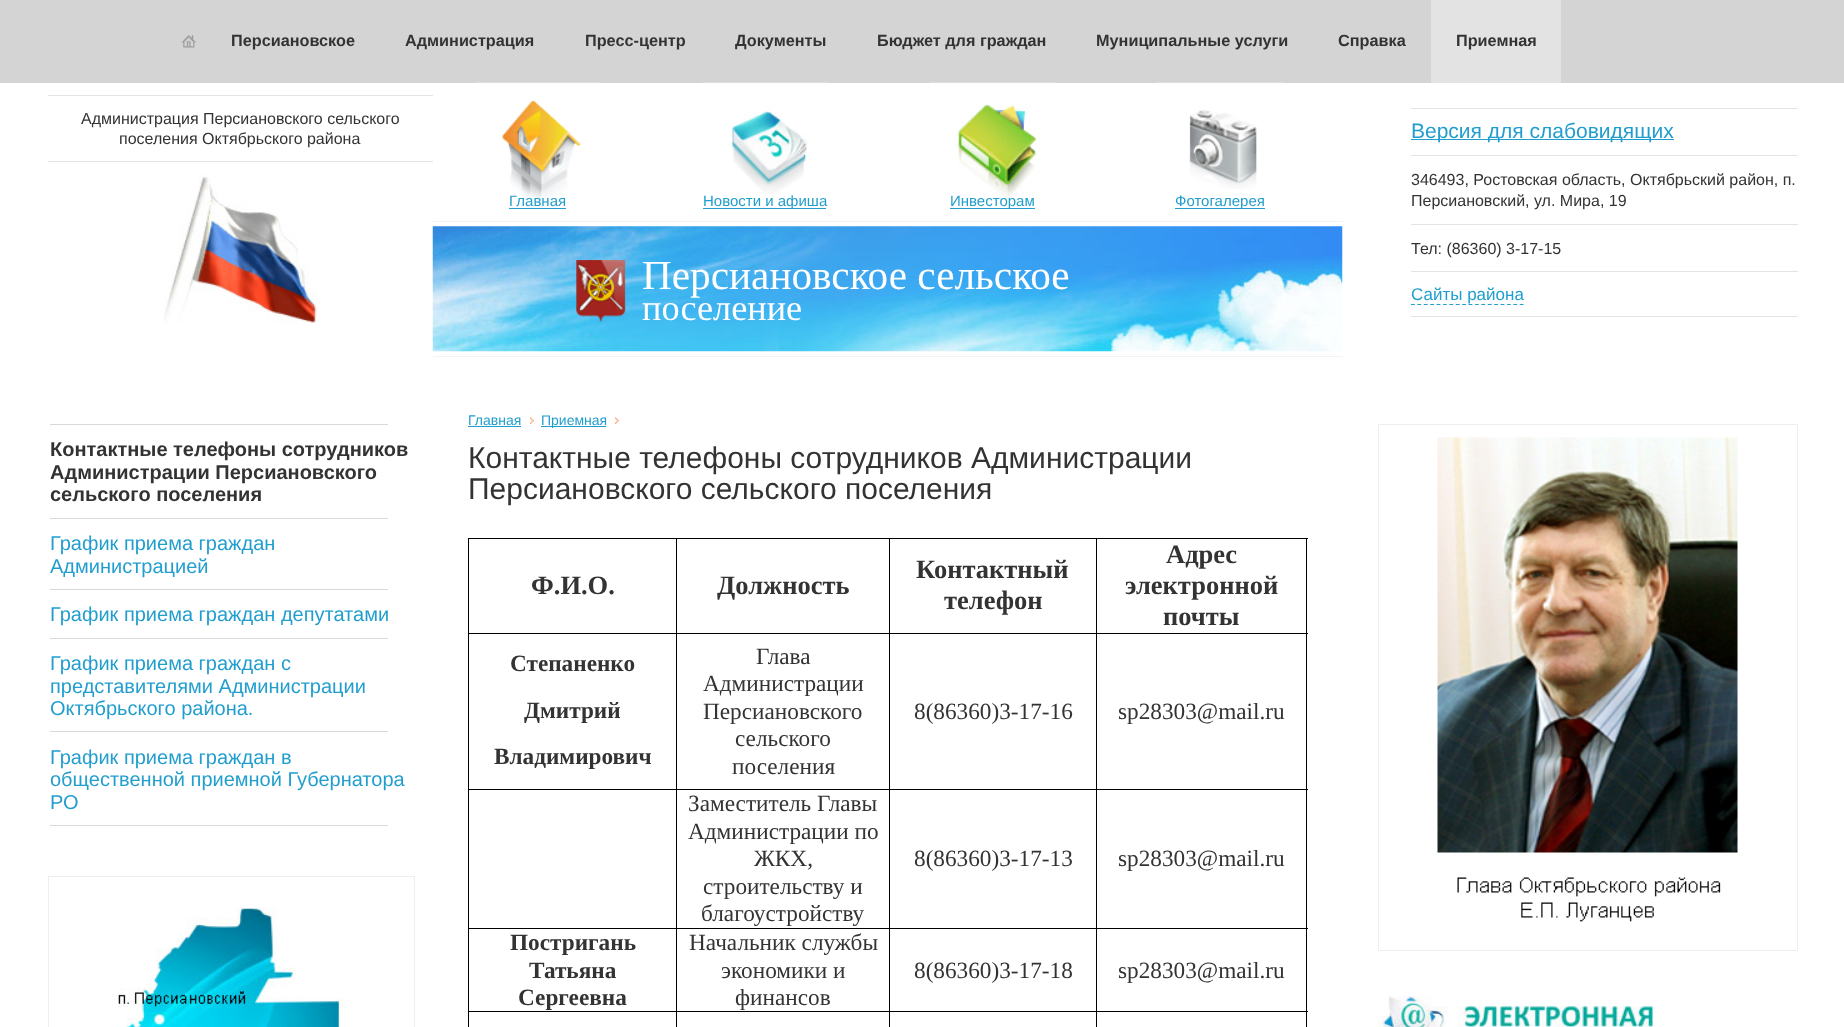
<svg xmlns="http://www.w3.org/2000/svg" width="1844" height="1027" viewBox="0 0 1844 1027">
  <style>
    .t1 { font: bold 16.25px Liberation Sans; fill: #333; }
    .t2 { font: 16px Liberation Sans; fill: #333; }
    .t3 { font: 15px Liberation Sans; fill: #229ece; }
    .t4 { font: 41.25px Liberation Serif; fill: #fff; }
    .t5 { font: 36.25px Liberation Serif; fill: #fff; }
    .t6 { font: 21px Liberation Sans; fill: #229ece; }
    .t7 { font: 17px Liberation Sans; fill: #229ece; }
    .t8 { font: bold 20px Liberation Sans; fill: #333; }
    .t9 { font: 20px Liberation Sans; fill: #229ece; }
    .t10 { font: 14px Liberation Sans; fill: #229ece; }
    .t11 { font: 30px Liberation Sans; fill: #333; }
    .t12 { font: bold 26.5px Liberation Serif; fill: #333; }
    .t13 { font: bold 23.25px Liberation Serif; fill: #333; }
    .t14 { font: 23.25px Liberation Serif; fill: #333; }
  </style>
  <rect width="100%" height="100%" fill="#fff"/>
  <rect x="0" y="0" width="1844" height="83" fill="#d4d4d4"/>
  <image x="181" y="35" width="15" height="13" href="images/1.png"/>
  <text x="231" y="46" class="t1">Персиановское</text>
  <text x="405" y="46" class="t1">Администрация</text>
  <text x="585" y="46" class="t1">Пресс-центр</text>
  <text x="735" y="46" class="t1">Документы</text>
  <text x="877" y="46" class="t1">Бюджет для граждан</text>
  <text x="1096" y="46" class="t1">Муниципальные услуги</text>
  <text x="1338" y="46" class="t1">Справка</text>
  <rect x="1431" y="0" width="130" height="83" fill="#e3e3e3"/>
  <text x="1456" y="46" class="t1">Приемная</text>
  <rect x="48" y="95" width="385" height="1" fill="#e0e4e9"/>
  <text x="81" y="124" class="t2">Администрация Персиановского сельского</text>
  <text x="119" y="144" class="t2">поселения Октябрьского района</text>
  <rect x="48" y="161" width="385" height="1" fill="#e0e4e9"/>
  <image x="164" y="175" width="155" height="148" href="images/2.png"/>
  <rect x="433" y="221" width="910" height="1" fill="#f2f2ee"/>
  <image x="475" y="82" width="125" height="120" href="images/3.png"/>
  <text x="509" y="206" class="t3">Главная</text>
  <rect x="509" y="208" width="57" height="1" fill="#229ece"/>
  <image x="702" y="82" width="126" height="113" href="images/4.png"/>
  <rect x="703" y="208" width="123" height="1" fill="#229ece"/>
  <text x="703" y="206" class="t3">Новости и афиша</text>
  <image x="930" y="82" width="125" height="117" href="images/5.png"/>
  <rect x="950" y="208" width="85" height="1" fill="#229ece"/>
  <text x="950" y="206" class="t3">Инвесторам</text>
  <image x="1157" y="82" width="126" height="107" href="images/6.png"/>
  <rect x="1175" y="208" width="90" height="1" fill="#229ece"/>
  <text x="1175" y="206" class="t3">Фотогалерея</text>
  <image x="432" y="226" width="911" height="126" href="images/7.png"/>
  <rect x="433" y="356" width="910" height="1" fill="#f2f2ee"/>
  <image x="576" y="260" width="50" height="62" href="images/8.png"/>
  <text x="642" y="289" class="t4">Персиановское сельское</text>
  <text x="642" y="320" class="t5">поселение</text>
  <rect x="1411" y="108" width="387" height="1" fill="#e0e4e9"/>
  <rect x="1411" y="139" width="263" height="1" fill="#229ece"/>
  <text x="1411" y="138" class="t6">Версия для слабовидящих</text>
  <rect x="1411" y="155" width="387" height="1" fill="#e0e4e9"/>
  <text x="1411" y="185" class="t2">346493, Ростовская область, Октябрьский район, п.</text>
  <text x="1411" y="206" class="t2">Персиановский, ул. Мира, 19</text>
  <rect x="1411" y="224" width="387" height="1" fill="#e0e4e9"/>
  <text x="1411" y="254" class="t2">Тел: (86360) 3-17-15</text>
  <rect x="1411" y="271" width="387" height="1" fill="#e0e4e9"/>
  <path d="M1411 304.5H1524" fill="none" stroke="#229ece" stroke-width="1.2" stroke-dasharray="3.75 2.65"/>
  <text x="1411" y="300" class="t7">Сайты района</text>
  <rect x="1411" y="316" width="387" height="1" fill="#e0e4e9"/>
  <rect x="50" y="424" width="338" height="1" fill="#d5dadf"/>
  <text x="50" y="456" class="t8">Контактные телефоны сотрудников</text>
  <text x="50" y="479" class="t8">Администрации Персиановского</text>
  <text x="50" y="501" class="t8">сельского поселения</text>
  <rect x="50" y="518" width="338" height="1" fill="#d5dadf"/>
  <text x="50" y="550" class="t9">График приема граждан</text>
  <text x="50" y="573" class="t9">Администрацией</text>
  <rect x="50" y="589" width="338" height="1" fill="#d5dadf"/>
  <text x="50" y="621" class="t9">График приема граждан депутатами</text>
  <rect x="50" y="638" width="338" height="1" fill="#d5dadf"/>
  <text x="50" y="670" class="t9">График приема граждан с</text>
  <text x="50" y="693" class="t9">представителями Администрации</text>
  <text x="50" y="715" class="t9">Октябрьского района.</text>
  <rect x="50" y="731" width="338" height="1" fill="#d5dadf"/>
  <text x="50" y="764" class="t9">График приема граждан в</text>
  <text x="50" y="786" class="t9">общественной приемной Губернатора</text>
  <text x="50" y="809" class="t9">РО</text>
  <rect x="50" y="825" width="338" height="1" fill="#d5dadf"/>
  <rect x="48.5" y="876.5" width="366" height="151" fill="none" stroke="#f0eee8"/>
  <image x="118" y="907" width="228" height="120" href="images/9.png"/>
  <text x="468" y="425" class="t10">Главная</text>
  <rect x="468" y="426" width="53" height="1" fill="#229ece"/>
  <image x="529" y="417" width="5" height="7" href="images/10.png"/>
  <rect x="541" y="426" width="65" height="1" fill="#229ece"/>
  <text x="541" y="425" class="t10">Приемная</text>
  <image x="614" y="417" width="5" height="7" href="images/10.png"/>
  <text x="468" y="468" class="t11">Контактные телефоны сотрудников Администрации</text>
  <text x="468" y="499" class="t11">Персиановского сельского поселения</text>
  <rect x="468" y="538" width="840" height="1" fill="#000"/>
  <rect x="1306" y="633" width="1" height="394" fill="#000"/>
  <rect x="1306" y="538" width="1" height="96" fill="#000"/>
  <rect x="1096" y="1011" width="1" height="16" fill="#000"/>
  <rect x="1096" y="1011" width="212" height="1" fill="#000"/>
  <rect x="1096" y="928" width="1" height="85" fill="#000"/>
  <rect x="1096" y="928" width="212" height="1" fill="#000"/>
  <rect x="1096" y="789" width="1" height="140" fill="#000"/>
  <rect x="1096" y="789" width="212" height="1" fill="#000"/>
  <rect x="1096" y="633" width="1" height="157" fill="#000"/>
  <rect x="1096" y="633" width="212" height="1" fill="#000"/>
  <rect x="1096" y="538" width="1" height="96" fill="#000"/>
  <rect x="889" y="1011" width="1" height="16" fill="#000"/>
  <rect x="889" y="1011" width="209" height="1" fill="#000"/>
  <rect x="889" y="928" width="1" height="85" fill="#000"/>
  <rect x="889" y="928" width="209" height="1" fill="#000"/>
  <rect x="889" y="789" width="1" height="140" fill="#000"/>
  <rect x="889" y="789" width="209" height="1" fill="#000"/>
  <rect x="889" y="633" width="1" height="157" fill="#000"/>
  <rect x="889" y="633" width="209" height="1" fill="#000"/>
  <rect x="889" y="538" width="1" height="96" fill="#000"/>
  <rect x="676" y="1011" width="1" height="16" fill="#000"/>
  <rect x="676" y="1011" width="214" height="1" fill="#000"/>
  <rect x="676" y="928" width="1" height="85" fill="#000"/>
  <rect x="676" y="928" width="214" height="1" fill="#000"/>
  <rect x="676" y="789" width="1" height="140" fill="#000"/>
  <rect x="676" y="789" width="214" height="1" fill="#000"/>
  <rect x="676" y="633" width="1" height="157" fill="#000"/>
  <rect x="676" y="633" width="214" height="1" fill="#000"/>
  <rect x="676" y="538" width="1" height="96" fill="#000"/>
  <rect x="468" y="1011" width="1" height="16" fill="#000"/>
  <rect x="468" y="1011" width="210" height="1" fill="#000"/>
  <rect x="468" y="928" width="1" height="85" fill="#000"/>
  <rect x="468" y="928" width="210" height="1" fill="#000"/>
  <rect x="468" y="789" width="1" height="140" fill="#000"/>
  <rect x="468" y="789" width="210" height="1" fill="#000"/>
  <rect x="468" y="633" width="1" height="157" fill="#000"/>
  <rect x="468" y="633" width="210" height="1" fill="#000"/>
  <rect x="468" y="538" width="1" height="96" fill="#000"/>
  <text x="531" y="594" class="t12">Ф.И.О.</text>
  <text x="717" y="594" class="t12">Должность</text>
  <text x="916" y="578" class="t12">Контактный</text>
  <text x="944" y="609" class="t12">телефон</text>
  <text x="1166" y="563" class="t12">Адрес</text>
  <text x="1125" y="594" class="t12">электронной</text>
  <text x="1163" y="625" class="t12">почты</text>
  <text x="510" y="671" class="t13">Степаненко</text>
  <text x="524" y="718" class="t13">Дмитрий</text>
  <text x="494" y="764" class="t13">Владимирович</text>
  <text x="756" y="664" class="t14">Глава</text>
  <text x="703" y="691" class="t14">Администрации</text>
  <text x="703" y="719" class="t14">Персиановского</text>
  <text x="735" y="746" class="t14">сельского</text>
  <text x="732" y="774" class="t14">поселения</text>
  <text x="914" y="719" class="t14">8(86360)3-17-16</text>
  <text x="1118" y="719" class="t14">sp28303@mail.ru</text>
  <text x="688" y="811" class="t14">Заместитель Главы</text>
  <text x="688" y="839" class="t14">Администрации по</text>
  <text x="754" y="866" class="t14">ЖКХ,</text>
  <text x="703" y="894" class="t14">строительству и</text>
  <text x="701" y="921" class="t14">благоустройству</text>
  <text x="914" y="866" class="t14">8(86360)3-17-13</text>
  <text x="1118" y="866" class="t14">sp28303@mail.ru</text>
  <text x="510" y="950" class="t13">Постригань</text>
  <text x="529" y="978" class="t13">Татьяна</text>
  <text x="518" y="1005" class="t13">Сергеевна</text>
  <text x="689" y="950" class="t14">Начальник службы</text>
  <text x="721" y="978" class="t14">экономики и</text>
  <text x="735" y="1005" class="t14">финансов</text>
  <text x="914" y="978" class="t14">8(86360)3-17-18</text>
  <text x="1118" y="978" class="t14">sp28303@mail.ru</text>
  <rect x="1378.5" y="424.5" width="419" height="526" fill="none" stroke="#f0eee8"/>
  <image x="1437" y="437" width="301" height="485" href="images/11.png"/>
  <image x="1377" y="996" width="276" height="31" href="images/12.png"/>
</svg>
